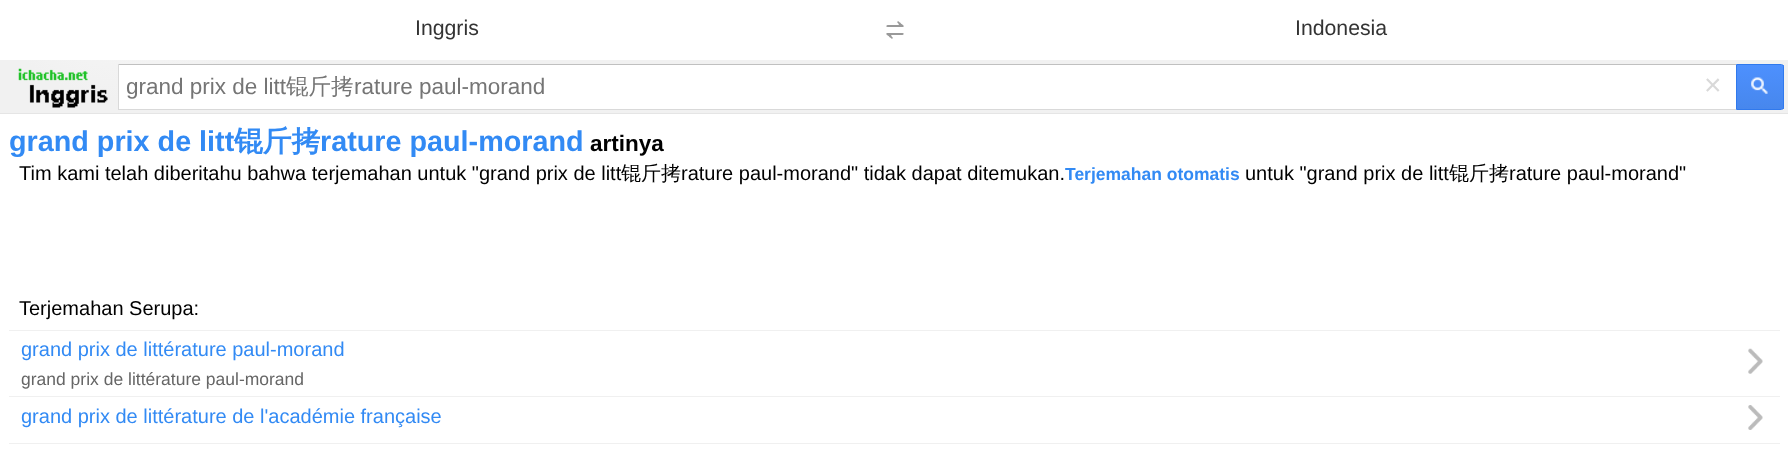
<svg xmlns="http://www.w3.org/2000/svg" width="1788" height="459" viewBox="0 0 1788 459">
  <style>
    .t1 { font: 21.25px Liberation Sans; fill: #333; }
    .t2 { font: 22.5px Liberation Sans; fill: #757575; }
    .t3 { font: 500 22.5px WenQuanYi Zen Hei; fill: #757575; }
    .t4 { font: 30px Liberation Sans; fill: #d9d9d9; }
    .t5 { font: bold 28.75px Liberation Sans; fill: #328af4; }
    .t6 { font: bold 28.75px WenQuanYi Zen Hei; fill: #328af4; }
    .t7 { font: bold 22.5px Liberation Sans; fill: #000; }
    .t8 { font: 20px Liberation Sans; fill: #000; }
    .t9 { font: 500 20px WenQuanYi Zen Hei; fill: #000; }
    .t10 { font: bold 17.5px Liberation Sans; fill: #328af4; }
    .t11 { font: 20px Liberation Sans; fill: #328af4; }
    .t12 { font: 17.5px Liberation Sans; fill: #666; }
  </style>
  <defs>
    <radialGradient id="g1" gradientUnits="userSpaceOnUse" cx="125" cy="-50" r="150"><stop offset="0" stop-color="#fafafa"/><stop offset="1" stop-color="#f1f1f1"/></radialGradient>
    <linearGradient id="g2" gradientUnits="userSpaceOnUse" x1="1738" y1="65" x2="1738" y2="109"><stop offset="0" stop-color="#4d90fe"/><stop offset="1" stop-color="#4787ed"/></linearGradient>
  </defs>
  <rect width="100%" height="100%" fill="#fff"/>
  <rect x="0" y="60" width="1788" height="53" fill="url(#g1)"/>
  <rect x="0" y="113" width="1788" height="1" fill="#e5e5e5"/>
  <text x="415" y="35" class="t1">Inggris</text>
  <image x="886" y="21" width="18" height="18" href="images/1.png"/>
  <text x="1295" y="35" class="t1">Indonesia</text>
  <image x="18" y="68" width="90" height="40" href="images/2.png"/>
  <rect x="119" y="65" width="1617" height="44" fill="#fff"/>
  <rect x="118" y="64" width="1618" height="1" fill="#c0c0c0"/>
  <rect x="118" y="109" width="1618" height="1" fill="#d9d9d9"/>
  <rect x="118" y="64" width="1" height="46" fill="#d9d9d9"/>
  <text x="126" y="94" class="t2">grand prix de litt</text>
  <text x="286" y="94" class="t3">锟斤拷</text>
  <text x="354" y="94" class="t2">rature paul-morand</text>
  <text x="1704" y="95" class="t4">×</text>
  <rect x="1737" y="65" width="47" height="44" fill="url(#g2)"/>
  <path d="M1736.5 64.5H1781.5C1782.5 64.5 1783.5 65.5 1783.5 66.5V107.5C1783.5 108.5 1782.5 109.5 1781.5 109.5H1736.5Z" fill="none" stroke="#3079ed"/>
  <image x="1751" y="77" width="17" height="17" href="images/3.png"/>
  <text x="9" y="151" class="t5">grand prix de litt</text>
  <text x="234" y="151" class="t6">锟斤拷</text>
  <text x="320" y="151" class="t5">rature paul-morand</text>
  <text x="590" y="151" class="t7">artinya</text>
  <text x="19" y="180" class="t8">Tim kami telah diberitahu bahwa terjemahan untuk "grand prix de litt</text>
  <text x="621" y="180" class="t9">锟斤拷</text>
  <text x="681" y="180" class="t8">rature paul-morand" tidak dapat ditemukan.</text>
  <text x="1065" y="180" class="t10">Terjemahan otomatis</text>
  <text x="1245" y="180" class="t8">untuk "grand prix de litt</text>
  <text x="1449" y="180" class="t9">锟斤拷</text>
  <text x="1509" y="180" class="t8">rature paul-morand"</text>
  <text x="19" y="315" class="t8">Terjemahan Serupa:</text>
  <rect x="9" y="330" width="1771" height="1" fill="#f0f0f0"/>
  <text x="21" y="356" class="t11">grand prix de littérature paul-morand</text>
  <text x="21" y="385" class="t12">grand prix de littérature paul-morand</text>
  <image x="1748" y="348" width="15" height="26" href="images/4.png"/>
  <rect x="9" y="396" width="1771" height="1" fill="#f0f0f0"/>
  <text x="21" y="423" class="t11">grand prix de littérature de l'académie française</text>
  <image x="1748" y="405" width="15" height="25" href="images/5.png"/>
  <rect x="9" y="443" width="1771" height="1" fill="#f0f0f0"/>
</svg>
